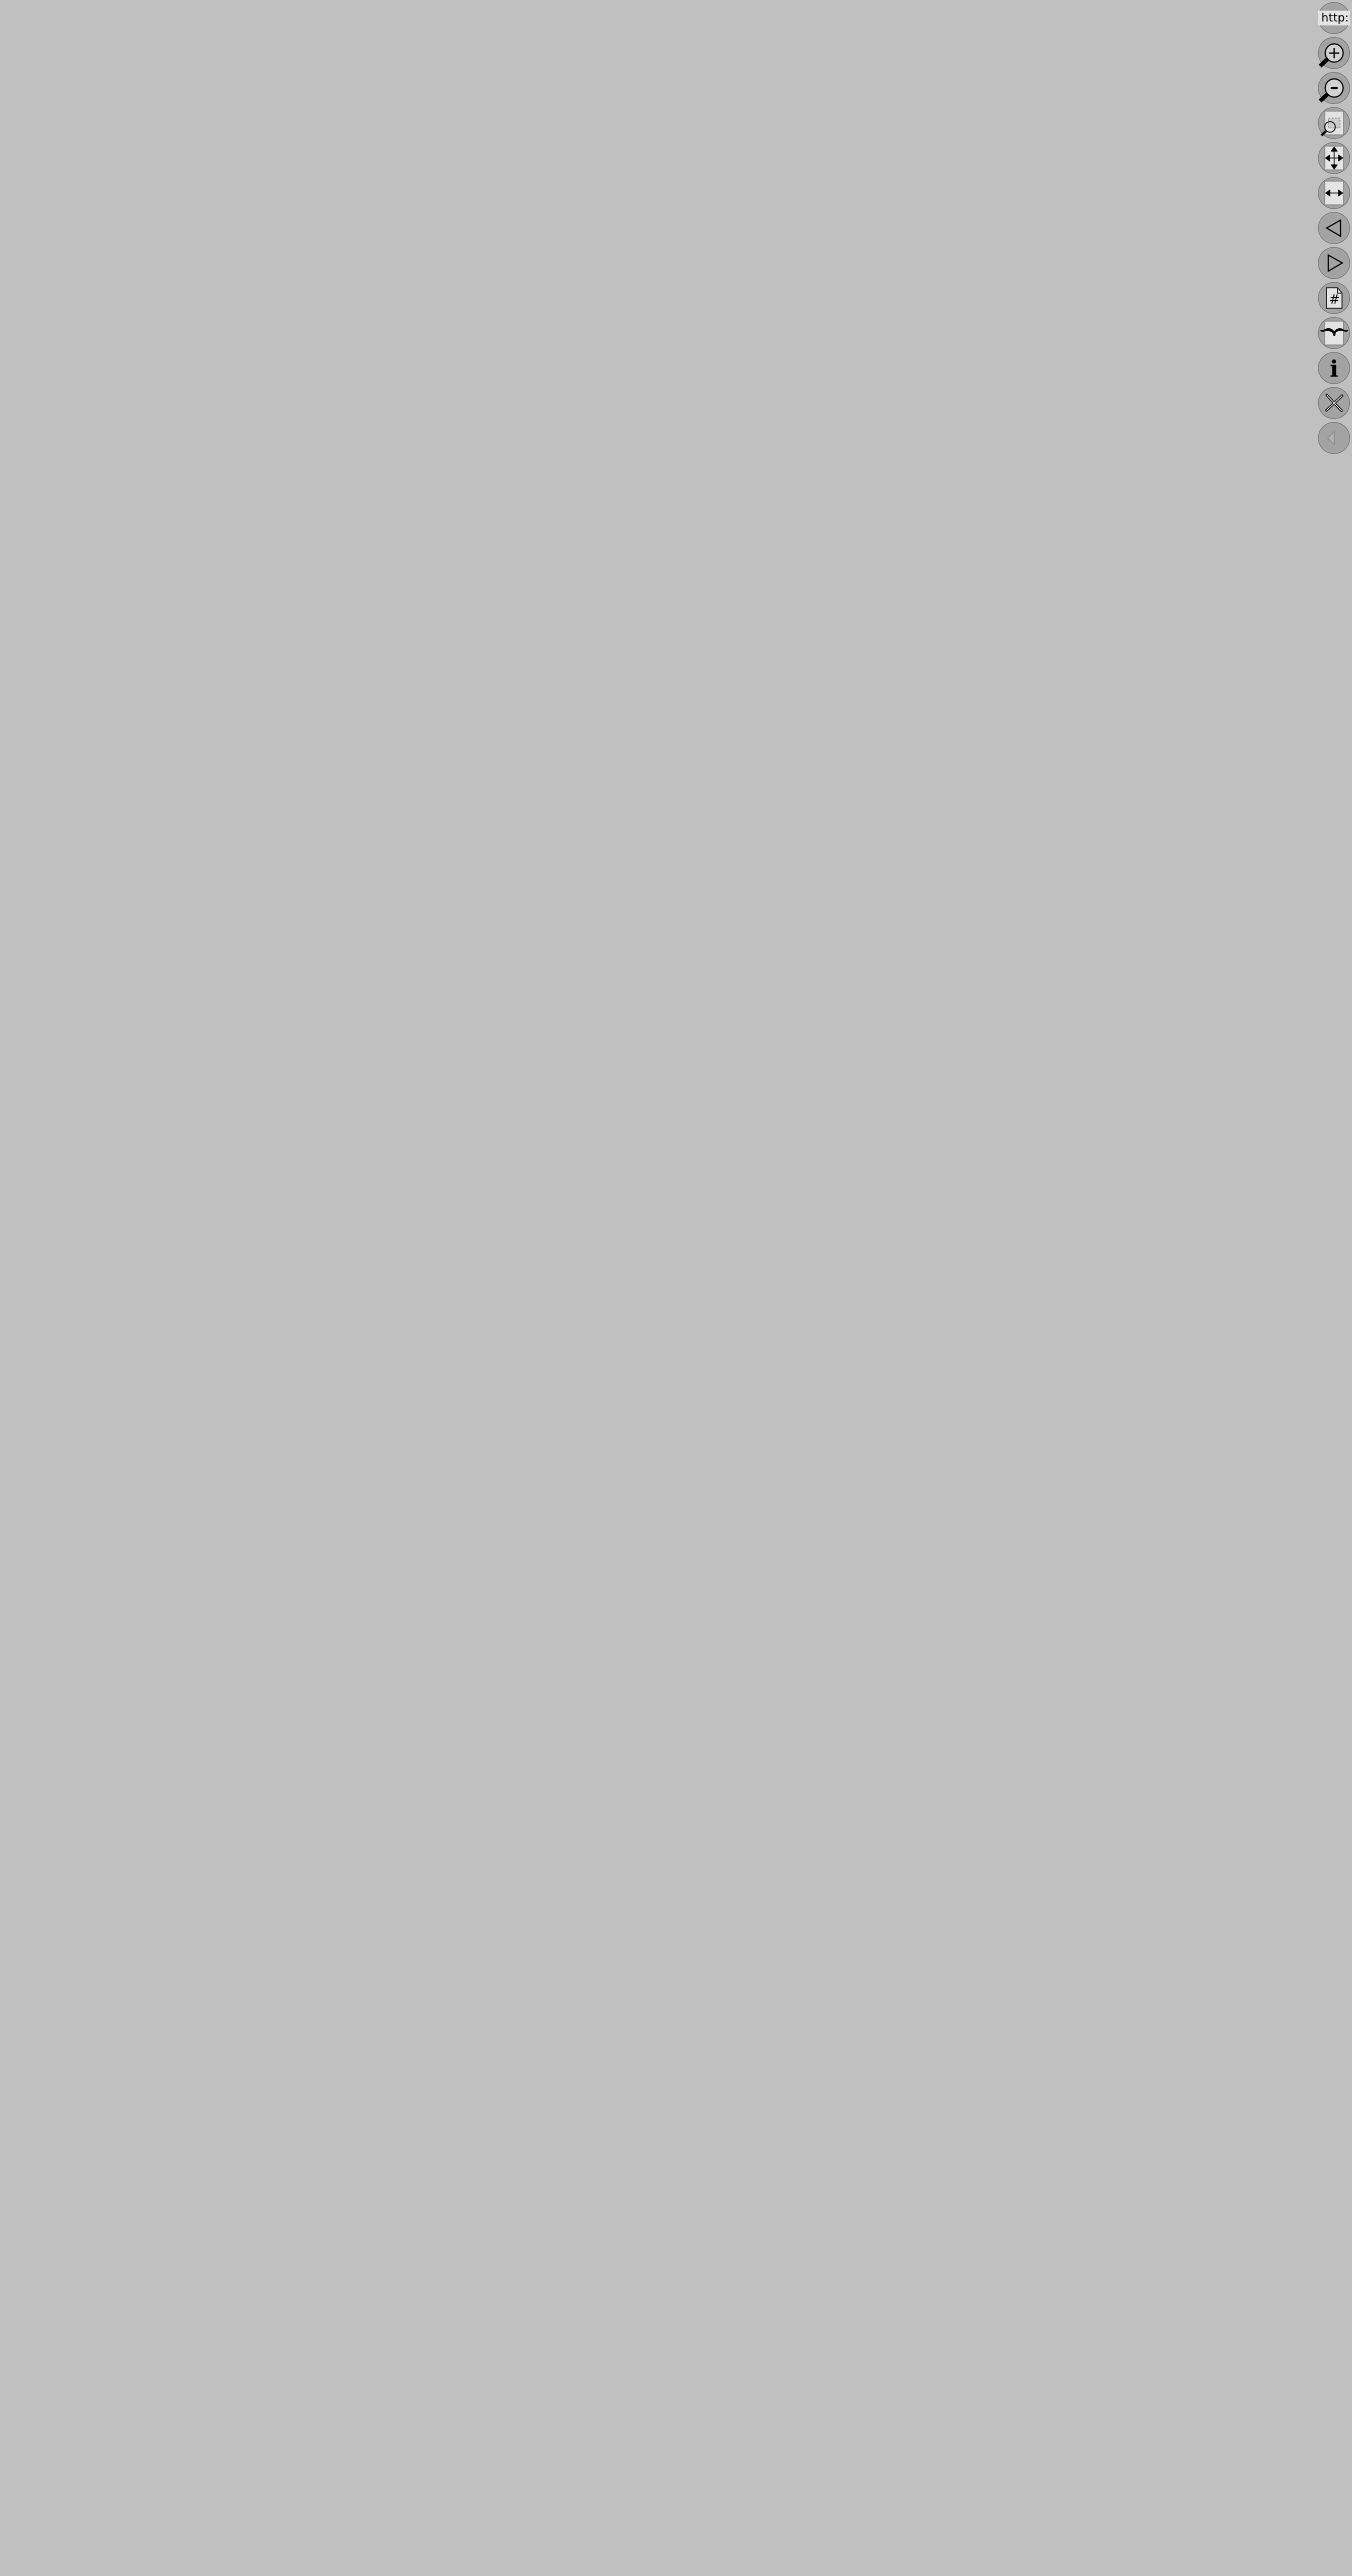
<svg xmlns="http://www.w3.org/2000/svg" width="1352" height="2576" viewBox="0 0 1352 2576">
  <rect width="100%" height="100%" fill="#c0c0c0"/>
  <image x="1318" y="2" width="32" height="32" href="images/1.png"/>
  <image x="1318" y="37" width="32" height="32" href="images/2.png"/>
  <image x="1318" y="72" width="32" height="32" href="images/3.png"/>
  <image x="1318" y="107" width="32" height="32" href="images/4.png"/>
  <image x="1318" y="142" width="32" height="32" href="images/5.png"/>
  <image x="1318" y="177" width="32" height="32" href="images/6.png"/>
  <image x="1318" y="212" width="32" height="32" href="images/7.png"/>
  <image x="1318" y="247" width="32" height="32" href="images/8.png"/>
  <image x="1318" y="282" width="32" height="32" href="images/9.png"/>
  <image x="1318" y="317" width="32" height="32" href="images/10.png"/>
  <image x="1318" y="352" width="32" height="32" href="images/11.png"/>
  <image x="1318" y="387" width="32" height="32" href="images/12.png"/>
  <image x="1318" y="422" width="32" height="32" href="images/13.png"/>
</svg>
